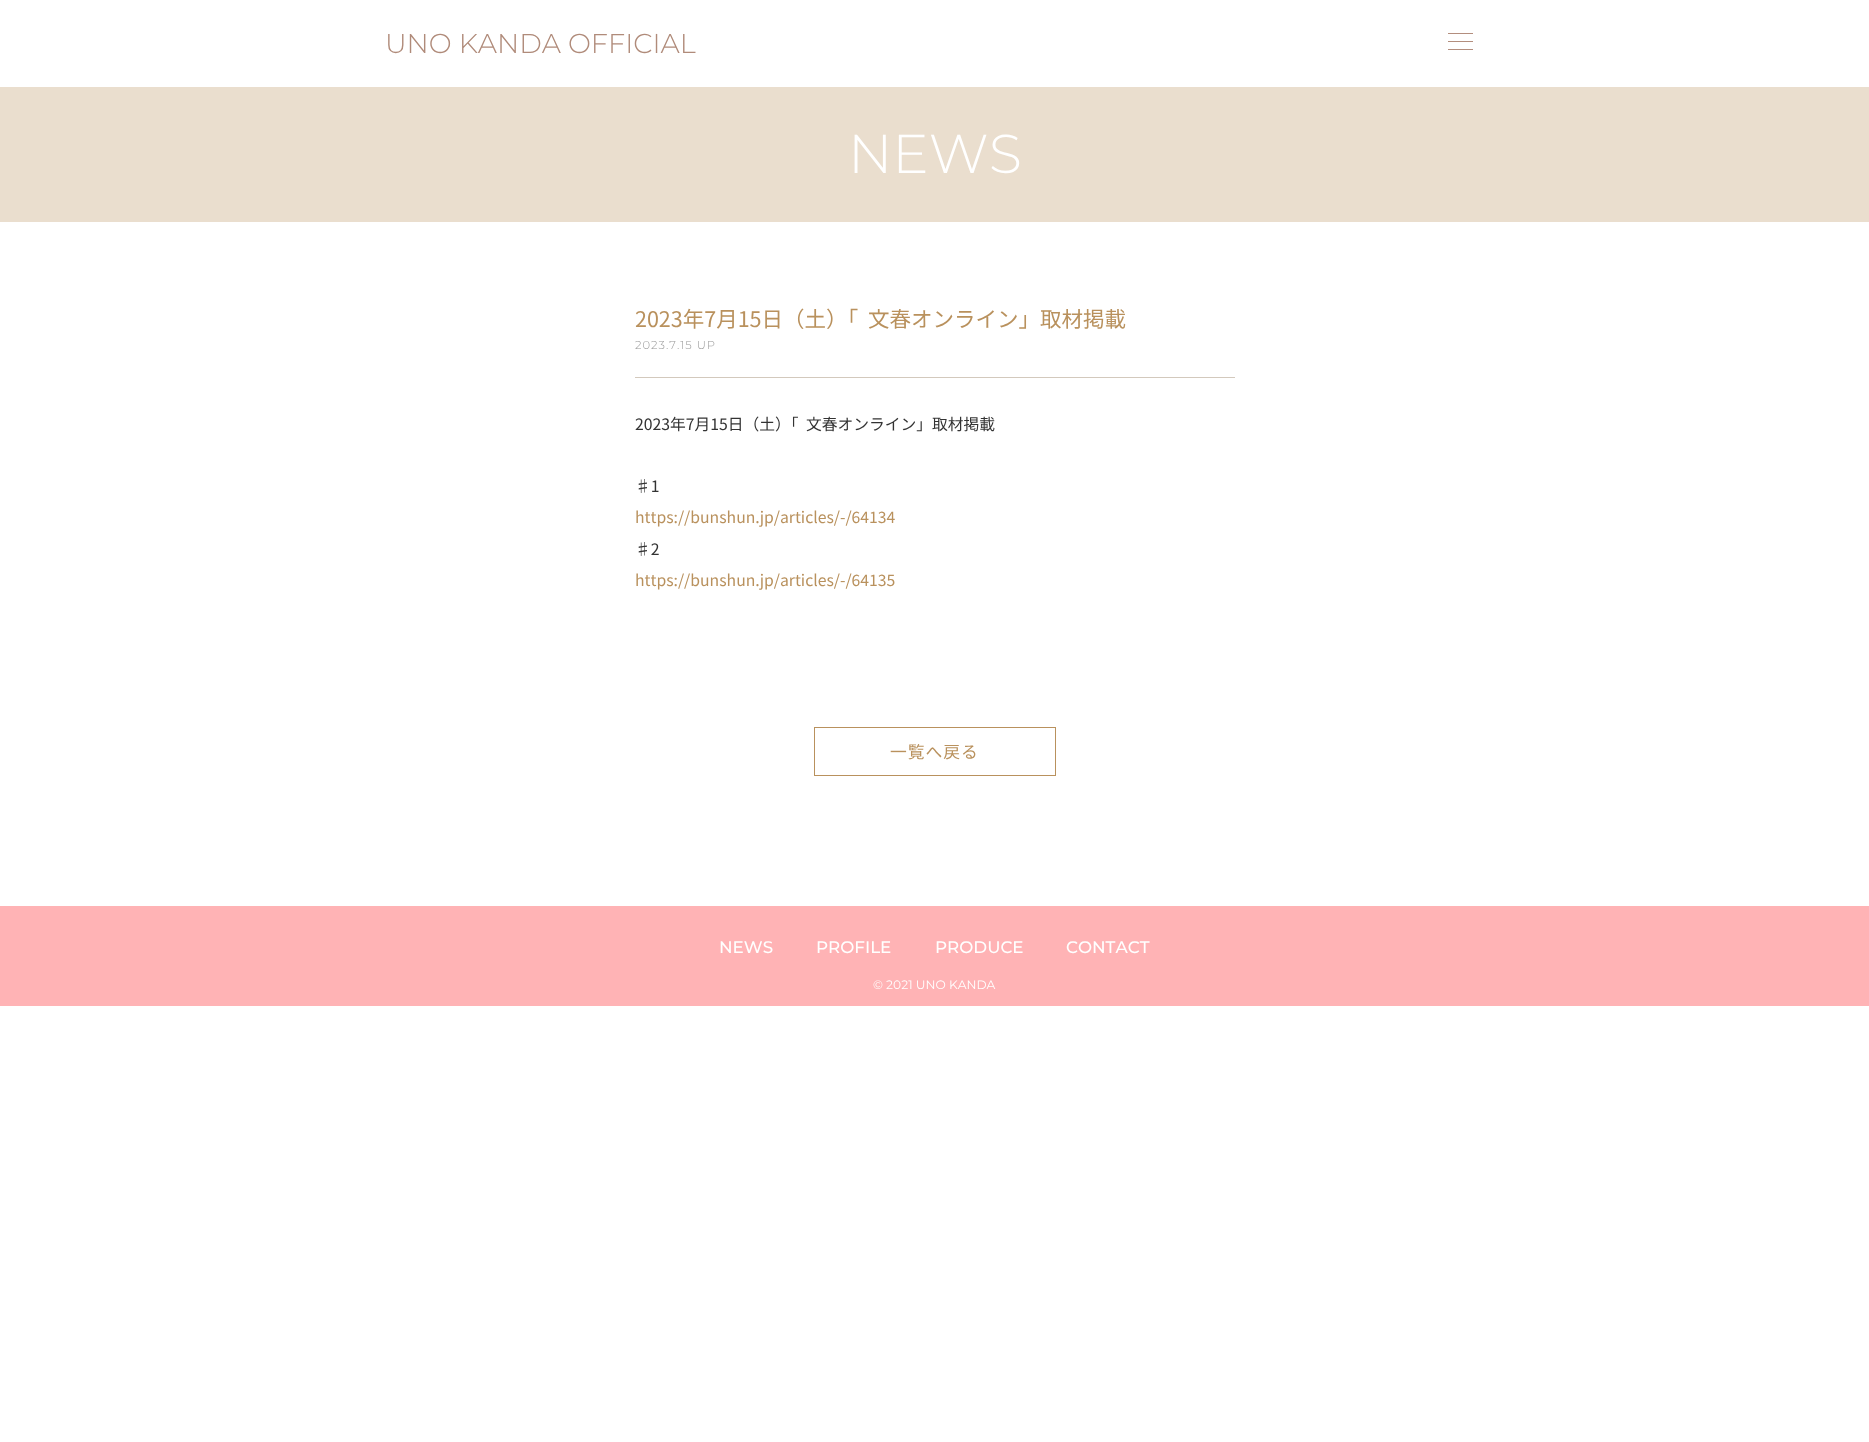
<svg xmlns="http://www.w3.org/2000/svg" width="1869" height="1442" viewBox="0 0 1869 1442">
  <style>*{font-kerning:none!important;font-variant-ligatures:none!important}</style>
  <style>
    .t1 { font: 300 27.25px Montserrat; fill: #b08b7a; }
    .t2 { font: 300 54.5px Montserrat; fill: #fff; }
    .t3 { font: 21.5px Noto Sans JP; fill: #b9915d; }
    .t4 { font: 300 11.5px Montserrat; letter-spacing: 1px; fill: #999; }
    .t5 { font: 15.75px Noto Sans JP; fill: #333; }
    .t6 { font: 15.75px Noto Sans JP; fill: #b9915d; }
    .t7 { font: 16.75px Noto Sans JP; letter-spacing: 1px; fill: #b9915d; }
    .t8 { font: 500 16.75px Montserrat; fill: #fff; }
    .t9 { font: 12.25px Montserrat; fill: #fff; }
  </style>
  <rect width="100%" height="100%" fill="#fff"/>
  <text x="385" y="53" class="t1">UNO KANDA OFFICIAL</text>
  <rect x="1448" y="33" width="25" height="1" fill="#b38e7e"/>
  <rect x="1448" y="41" width="25" height="1" fill="#b38e7e"/>
  <rect x="1448" y="49" width="25" height="1" fill="#b38e7e"/>
  <rect x="0" y="87" width="1869" height="135" fill="#eadece"/>
  <text x="848" y="173" class="t2">NEWS</text>
  <text x="635" y="327" class="t3">2023年7月15日（土）「</text>
  <text x="868" y="327" class="t3">文春オンライン」取材掲載</text>
  <rect x="635" y="377" width="600" height="1" fill="#d3c9bd"/>
  <text x="635" y="349" class="t4">2023.7.15 UP</text>
  <text x="635" y="430" class="t5">2023年7月15日（土）「</text>
  <text x="806" y="430" class="t5">文春オンライン」取材掲載</text>
  <text x="635" y="492" class="t5">♯1</text>
  <text x="635" y="523" class="t6">https://bunshun.jp/articles/-/64134</text>
  <text x="635" y="555" class="t5">♯2</text>
  <text x="635" y="586" class="t6">https://bunshun.jp/articles/-/64135</text>
  <rect x="814.5" y="727.5" width="241" height="48" fill="none" stroke="#b9915d"/>
  <text x="890" y="758" class="t7">一覧へ戻る</text>
  <rect x="0" y="906" width="1869" height="100" fill="#ffb3b5"/>
  <text x="719" y="953" class="t8">NEWS</text>
  <text x="816" y="953" class="t8">PROFILE</text>
  <text x="935" y="953" class="t8">PRODUCE</text>
  <text x="1066" y="953" class="t8">CONTACT</text>
  <text x="873" y="989" class="t9">© 2021 UNO KANDA</text>
</svg>
